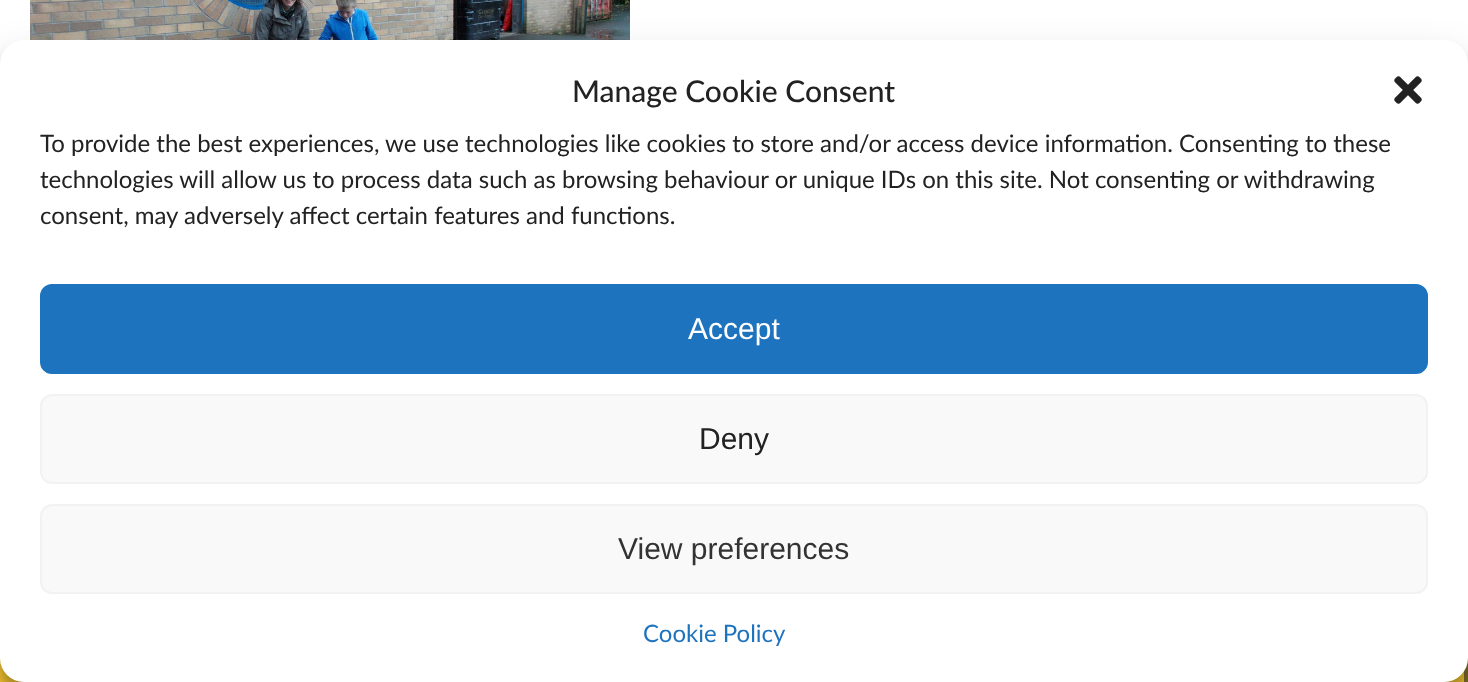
<svg xmlns="http://www.w3.org/2000/svg" width="1468" height="682" viewBox="0 0 1468 682">
  <style>
    .t1 { font: 500 30px Lato; fill: #222; }
    .t2 { font: 24px Lato; fill: #222; }
    .t3 { font: 30px Liberation Sans; fill: #fff; }
    .t4 { font: 30px Liberation Sans; fill: #222; }
    .t5 { font: 30px Liberation Sans; fill: #333; }
    .t6 { font: 24px Lato; fill: #1e73be; }
  </style>
  <rect width="100%" height="100%" fill="#fff"/>
  <image x="30" y="0" width="600" height="40" href="images/1.png"/>
  <rect x="0" y="658" width="1464" height="24" fill="#ffcd34"/>
  <rect x="1464" y="658" width="4" height="24" fill="#816e27"/>
  <rect x="0" y="52" width="1468" height="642" rx="24" fill="#0000003b" filter="blur(6px)"/>
  <rect x="0" y="60" width="1468" height="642" rx="24" fill="#00000030" filter="blur(20px)"/>
  <rect x="1328" y="534" width="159" height="120" rx="4" fill="#808080" filter="blur(5px)"/>
  <rect x="0" y="40" width="1468" height="642" rx="24" fill="#fff"/>
  <text x="572" y="102" class="t1">Manage Cookie Consent</text>
  <image x="1394" y="76" width="28" height="28" href="images/2.png"/>
  <text x="40" y="152" class="t2">To provide the best experiences, we use technologies like cookies to store and/or access device information. Consenting to these</text>
  <text x="40" y="188" class="t2">technologies will allow us to process data such as browsing behaviour or unique IDs on this site. Not consenting or withdrawing</text>
  <text x="40" y="224" class="t2">consent, may adversely affect certain features and functions.</text>
  <rect x="41" y="285" width="1386" height="88" rx="11" fill="#1e73be" stroke="#1e73be" stroke-width="2"/>
  <text x="688" y="339" class="t3">Accept</text>
  <rect x="41" y="395" width="1386" height="88" rx="11" fill="#f9f9f9" stroke="#f2f2f2" stroke-width="2"/>
  <text x="699" y="449" class="t4">Deny</text>
  <rect x="41" y="505" width="1386" height="88" rx="11" fill="#f9f9f9" stroke="#f2f2f2" stroke-width="2"/>
  <text x="618" y="559" class="t5">View preferences</text>
  <text x="643" y="642" class="t6">Cookie Policy</text>
</svg>
